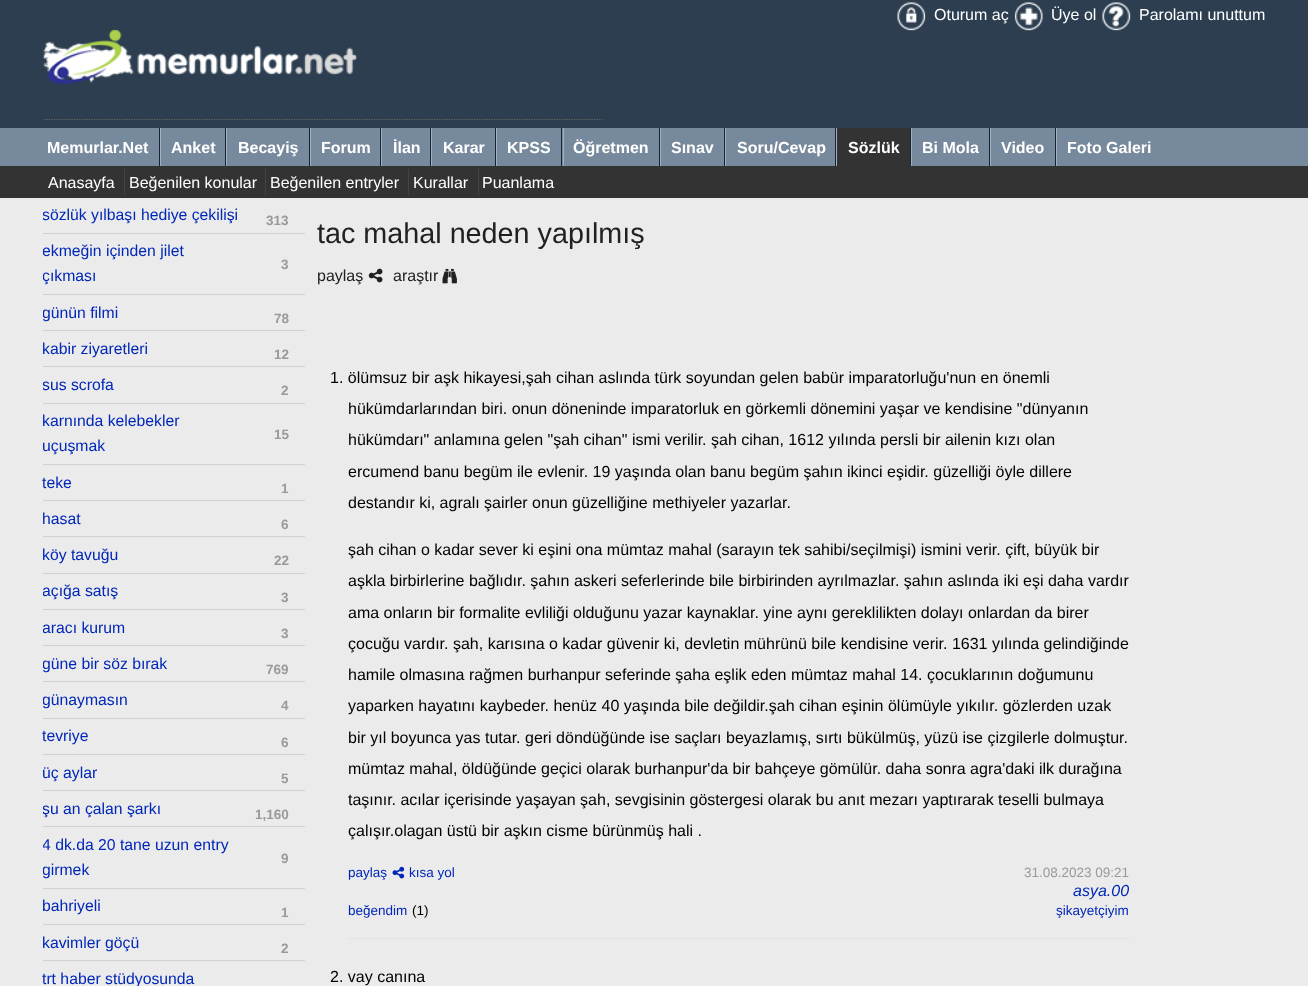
<svg xmlns="http://www.w3.org/2000/svg" width="1308" height="986" viewBox="0 0 1308 986">
  <style>
    .t1 { font: 16px Liberation Sans; fill: #fff; }
    .t2 { font: bold 16px Liberation Sans; fill: #fff; }
    .t3 { font: 15.75px Liberation Sans; fill: #0027b8; }
    .t4 { font: bold 13.5px Liberation Sans; fill: #999; }
    .t5 { font: 28.75px Liberation Sans; fill: #212121; }
    .t6 { font: 16px Liberation Sans; fill: #212121; }
    .t7 { font: 16px Liberation Sans; fill: #000; }
    .t8 { font: 13.5px Liberation Sans; fill: #0027b8; }
    .t9 { font: 13.5px Liberation Sans; fill: #999; }
    .t10 { font: italic 16px Liberation Sans; fill: #0027b8; }
    .t11 { font: 13.5px Liberation Sans; fill: #000; }
  </style>
  <defs>
    <clipPath id="clip1"><rect x="43" y="198" width="262" height="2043"/></clipPath>
  </defs>
  <rect width="100%" height="100%" fill="#ebebeb"/>
  <rect x="0" y="0" width="1308" height="128" fill="#2c3e50"/>
  <image x="897" y="2" width="29" height="29" href="images/1.png"/>
  <text x="934" y="20" class="t1">Oturum aç</text>
  <image x="1014" y="2" width="29" height="29" href="images/2.png"/>
  <text x="1051" y="20" class="t1">Üye ol</text>
  <image x="1102" y="2" width="29" height="29" href="images/3.png"/>
  <text x="1139" y="20" class="t1">Parolamı unuttum</text>
  <image x="43" y="29" width="314" height="55" href="images/4.png"/>
  <path d="M44 119.5H602.5" fill="none" stroke="#666" stroke-width="1.2" stroke-dasharray="1.25 1.25"/>
  <rect x="0" y="128" width="1308" height="38" fill="#77899c"/>
  <rect x="159" y="128" width="1" height="38" fill="#162432"/>
  <text x="47" y="153" class="t2">Memurlar.Net</text>
  <rect x="225" y="128" width="1" height="38" fill="#162432"/>
  <rect x="160" y="128" width="1" height="38" fill="#a2afbd"/>
  <text x="171" y="153" class="t2">Anket</text>
  <rect x="309" y="128" width="1" height="38" fill="#162432"/>
  <rect x="226" y="128" width="1" height="38" fill="#a2afbd"/>
  <text x="238" y="153" class="t2">Becayiş</text>
  <rect x="380" y="128" width="1" height="38" fill="#162432"/>
  <rect x="310" y="128" width="1" height="38" fill="#a2afbd"/>
  <text x="321" y="153" class="t2">Forum</text>
  <rect x="430" y="128" width="1" height="38" fill="#162432"/>
  <rect x="381" y="128" width="1" height="38" fill="#a2afbd"/>
  <text x="393" y="153" class="t2">İlan</text>
  <rect x="495" y="128" width="1" height="38" fill="#162432"/>
  <rect x="431" y="128" width="1" height="38" fill="#a2afbd"/>
  <text x="443" y="153" class="t2">Karar</text>
  <rect x="561" y="128" width="1" height="38" fill="#162432"/>
  <rect x="496" y="128" width="1" height="38" fill="#a2afbd"/>
  <text x="507" y="153" class="t2">KPSS</text>
  <rect x="659" y="128" width="1" height="38" fill="#162432"/>
  <rect x="563" y="128" width="1" height="38" fill="#a2afbd"/>
  <text x="573" y="153" class="t2">Öğretmen</text>
  <rect x="724" y="128" width="1" height="38" fill="#162432"/>
  <rect x="660" y="128" width="1" height="38" fill="#a2afbd"/>
  <text x="671" y="153" class="t2">Sınav</text>
  <rect x="835" y="128" width="1" height="38" fill="#162432"/>
  <rect x="725" y="128" width="1" height="38" fill="#a2afbd"/>
  <text x="737" y="153" class="t2">Soru/Cevap</text>
  <rect x="837" y="128" width="73" height="38" fill="#333"/>
  <rect x="910" y="128" width="1" height="38" fill="#162432"/>
  <rect x="836" y="128" width="1" height="38" fill="#a2afbd"/>
  <text x="848" y="153" class="t2">Sözlük</text>
  <rect x="989" y="128" width="1" height="38" fill="#162432"/>
  <rect x="911" y="128" width="1" height="38" fill="#a2afbd"/>
  <text x="922" y="153" class="t2">Bi Mola</text>
  <rect x="1055" y="128" width="1" height="38" fill="#162432"/>
  <rect x="990" y="128" width="1" height="38" fill="#a2afbd"/>
  <text x="1001" y="153" class="t2">Video</text>
  <rect x="1056" y="128" width="1" height="38" fill="#a2afbd"/>
  <text x="1067" y="153" class="t2">Foto Galeri</text>
  <rect x="0" y="166" width="1308" height="32" fill="#333"/>
  <text x="48" y="188" class="t1">Anasayfa</text>
  <rect x="124" y="169" width="1" height="26" fill="#444"/>
  <text x="129" y="188" class="t1">Beğenilen konular</text>
  <rect x="265" y="169" width="1" height="26" fill="#444"/>
  <text x="270" y="188" class="t1">Beğenilen entryler</text>
  <rect x="408" y="169" width="1" height="26" fill="#444"/>
  <text x="413" y="188" class="t1">Kurallar</text>
  <rect x="478" y="169" width="1" height="26" fill="#444"/>
  <text x="482" y="188" class="t1">Puanlama</text>
  <rect x="43" y="233" width="262" height="1" fill="#d1d1d1"/>
  <g clip-path="url(#clip1)">
    <text x="42" y="220" class="t3">sözlük yılbaşı hediye çekilişi</text>
  </g>
  <text x="266" y="225" class="t4">313</text>
  <rect x="43" y="294" width="262" height="1" fill="#d1d1d1"/>
  <g clip-path="url(#clip1)">
    <text x="42" y="256" class="t3">ekmeğin içinden jilet</text>
    <text x="42" y="281" class="t3">çıkması</text>
  </g>
  <text x="281" y="269" class="t4">3</text>
  <rect x="43" y="330" width="262" height="1" fill="#d1d1d1"/>
  <g clip-path="url(#clip1)">
    <text x="42" y="318" class="t3">günün filmi</text>
  </g>
  <text x="274" y="323" class="t4">78</text>
  <rect x="43" y="366" width="262" height="1" fill="#d1d1d1"/>
  <g clip-path="url(#clip1)">
    <text x="42" y="354" class="t3">kabir ziyaretleri</text>
  </g>
  <text x="274" y="359" class="t4">12</text>
  <rect x="43" y="403" width="262" height="1" fill="#d1d1d1"/>
  <g clip-path="url(#clip1)">
    <text x="42" y="390" class="t3">sus scrofa</text>
  </g>
  <text x="281" y="395" class="t4">2</text>
  <rect x="43" y="464" width="262" height="1" fill="#d1d1d1"/>
  <g clip-path="url(#clip1)">
    <text x="42" y="426" class="t3">karnında kelebekler</text>
    <text x="42" y="451" class="t3">uçuşmak</text>
  </g>
  <text x="274" y="439" class="t4">15</text>
  <rect x="43" y="500" width="262" height="1" fill="#d1d1d1"/>
  <text x="42" y="488" class="t3">teke</text>
  <text x="281" y="493" class="t4">1</text>
  <rect x="43" y="536" width="262" height="1" fill="#d1d1d1"/>
  <text x="42" y="524" class="t3">hasat</text>
  <text x="281" y="529" class="t4">6</text>
  <rect x="43" y="573" width="262" height="1" fill="#d1d1d1"/>
  <g clip-path="url(#clip1)">
    <text x="42" y="560" class="t3">köy tavuğu</text>
  </g>
  <text x="274" y="565" class="t4">22</text>
  <rect x="43" y="609" width="262" height="1" fill="#d1d1d1"/>
  <g clip-path="url(#clip1)">
    <text x="42" y="596" class="t3">açığa satış</text>
  </g>
  <text x="281" y="602" class="t4">3</text>
  <rect x="43" y="645" width="262" height="1" fill="#d1d1d1"/>
  <g clip-path="url(#clip1)">
    <text x="42" y="633" class="t3">aracı kurum</text>
  </g>
  <text x="281" y="638" class="t4">3</text>
  <rect x="43" y="681" width="262" height="1" fill="#d1d1d1"/>
  <g clip-path="url(#clip1)">
    <text x="42" y="669" class="t3">güne bir söz bırak</text>
  </g>
  <text x="266" y="674" class="t4">769</text>
  <rect x="43" y="718" width="262" height="1" fill="#d1d1d1"/>
  <g clip-path="url(#clip1)">
    <text x="42" y="705" class="t3">günaymasın</text>
  </g>
  <text x="281" y="710" class="t4">4</text>
  <rect x="43" y="754" width="262" height="1" fill="#d1d1d1"/>
  <text x="42" y="741" class="t3">tevriye</text>
  <text x="281" y="747" class="t4">6</text>
  <rect x="43" y="790" width="262" height="1" fill="#d1d1d1"/>
  <g clip-path="url(#clip1)">
    <text x="42" y="778" class="t3">üç aylar</text>
  </g>
  <text x="281" y="783" class="t4">5</text>
  <rect x="43" y="826" width="262" height="1" fill="#d1d1d1"/>
  <g clip-path="url(#clip1)">
    <text x="42" y="814" class="t3">şu an çalan şarkı</text>
  </g>
  <text x="255" y="819" class="t4">1,160</text>
  <rect x="43" y="888" width="262" height="1" fill="#d1d1d1"/>
  <g clip-path="url(#clip1)">
    <text x="42" y="850" class="t3">4 dk.da 20 tane uzun entry</text>
    <text x="42" y="875" class="t3">girmek</text>
  </g>
  <text x="281" y="863" class="t4">9</text>
  <rect x="43" y="924" width="262" height="1" fill="#d1d1d1"/>
  <g clip-path="url(#clip1)">
    <text x="42" y="911" class="t3">bahriyeli</text>
  </g>
  <text x="281" y="917" class="t4">1</text>
  <rect x="43" y="960" width="262" height="1" fill="#d1d1d1"/>
  <g clip-path="url(#clip1)">
    <text x="42" y="948" class="t3">kavimler göçü</text>
  </g>
  <text x="281" y="953" class="t4">2</text>
  <text x="42" y="984" class="t3">trt haber stüdyosunda</text>
  <text x="317" y="243" class="t5">tac mahal neden yapılmış</text>
  <text x="317" y="281" class="t6">paylaş</text>
  <image x="368" y="268" width="15" height="15" href="images/5.png"/>
  <text x="393" y="281" class="t6">araştır</text>
  <image x="442" y="268" width="15" height="16" href="images/6.png"/>
  <rect x="349" y="938" width="781" height="1" fill="#e2e2e2"/>
  <text x="330" y="383" class="t7">1. ölümsuz bir aşk hikayesi,şah cihan aslında türk soyundan gelen babür imparatorluğu'nun en önemli</text>
  <text x="348" y="414" class="t7">hükümdarlarından biri. onun döneninde imparatorluk en görkemli dönemini yaşar ve kendisine "dünyanın</text>
  <text x="348" y="445" class="t7">hükümdarı" anlamına gelen "şah cihan" ismi verilir. şah cihan, 1612 yılında persli bir ailenin kızı olan</text>
  <text x="348" y="477" class="t7">ercumend banu begüm ile evlenir. 19 yaşında olan banu begüm şahın ikinci eşidir. güzelliği öyle dillere</text>
  <text x="348" y="508" class="t7">destandır ki, agralı şairler onun güzelliğine methiyeler yazarlar.</text>
  <text x="348" y="555" class="t7">şah cihan o kadar sever ki eşini ona mümtaz mahal (sarayın tek sahibi/seçilmişi) ismini verir. çift, büyük bir</text>
  <text x="348" y="586" class="t7">aşkla birbirlerine bağlıdır. şahın askeri seferlerinde bile birbirinden ayrılmazlar. şahın aslında iki eşi daha vardır</text>
  <text x="348" y="618" class="t7">ama onların bir formalite evliliği olduğunu yazar kaynaklar. yine aynı gereklilikten dolayı onlardan da birer</text>
  <text x="348" y="649" class="t7">çocuğu vardır. şah, karısına o kadar güvenir ki, devletin mührünü bile kendisine verir. 1631 yılında gelindiğinde</text>
  <text x="348" y="680" class="t7">hamile olmasına rağmen burhanpur seferinde şaha eşlik eden mümtaz mahal 14. çocuklarının doğumunu</text>
  <text x="348" y="711" class="t7">yaparken hayatını kaybeder. henüz 40 yaşında bile değildir.şah cihan eşinin ölümüyle yıkılır. gözlerden uzak</text>
  <text x="348" y="743" class="t7">bir yıl boyunca yas tutar. geri döndüğünde ise saçları beyazlamış, sırtı bükülmüş, yüzü ise çizgilerle dolmuştur.</text>
  <text x="348" y="774" class="t7">mümtaz mahal, öldüğünde geçici olarak burhanpur'da bir bahçeye gömülür. daha sonra agra'daki ilk durağına</text>
  <text x="348" y="805" class="t7">taşınır. acılar içerisinde yaşayan şah, sevgisinin göstergesi olarak bu anıt mezarı yaptırarak teselli bulmaya</text>
  <text x="348" y="836" class="t7">çalışır.olagan üstü bir aşkın cisme bürünmüş hali .</text>
  <text x="348" y="877" class="t8">paylaş</text>
  <image x="392" y="866" width="13" height="13" href="images/7.png"/>
  <text x="409" y="877" class="t8">kısa yol</text>
  <text x="1024" y="877" class="t9">31.08.2023 09:21</text>
  <text x="1073" y="896" class="t10">asya.00</text>
  <text x="348" y="915" class="t8">beğendim</text>
  <text x="412" y="915" class="t11">(1)</text>
  <text x="1056" y="915" class="t8">şikayetçiyim</text>
  <text x="330" y="982" class="t7">2. vay canına</text>
</svg>
